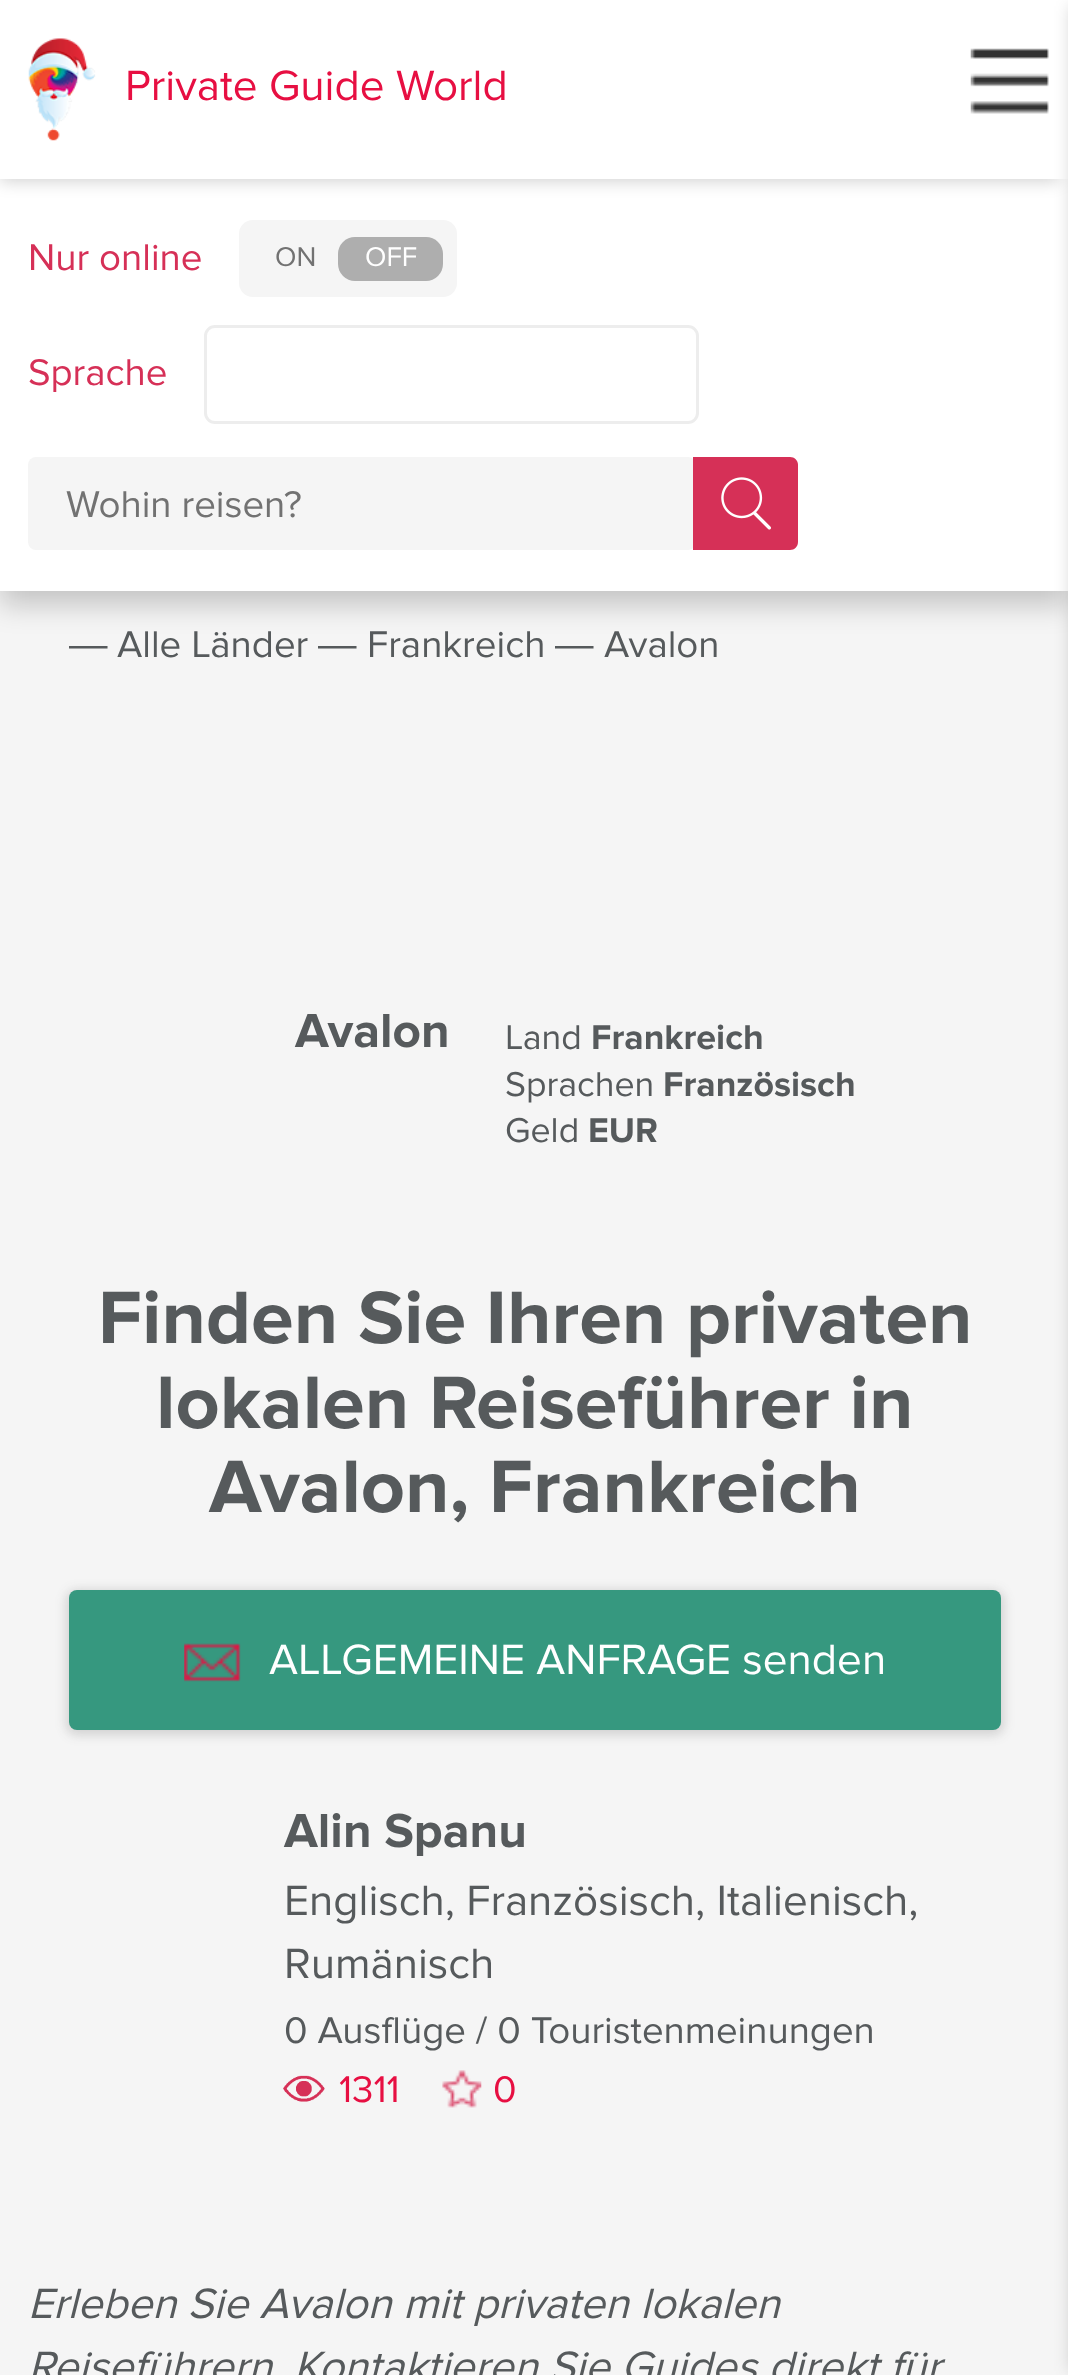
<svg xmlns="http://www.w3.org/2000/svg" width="1068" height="2375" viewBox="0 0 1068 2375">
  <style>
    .t1 { font: 44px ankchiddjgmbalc; fill: #e70f42; }
    .t2 { font: 38.5px ankchiddjgmbalc; fill: #d63057; }
    .t3 { font: 28px ankchiddjgmbalc; fill: #727272; }
    .t4 { font: 28px ankchiddjgmbalc; fill: #fff; }
    .t5 { font: 38.5px ankchiddjgmbalc; fill: #727272; }
    .t6 { font: 38.5px Liberation Sans; fill: #565a5c; }
    .t7 { font: 38.5px ankchiddjgmbalc; fill: #565a5c; }
    .t8 { font: bold 49.5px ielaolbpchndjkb; fill: #565a5c; }
    .t9 { font: 35.75px ankchiddjgmbalc; fill: #565a5c; }
    .t10 { font: bold 35.75px ielaolbpchndjkb; fill: #565a5c; }
    .t11 { font: bold 77px ielaolbpchndjkb; fill: #565a5c; }
    .t12 { font: 44px ankchiddjgmbalc; fill: #fff; }
    .t13 { font: 44px ankchiddjgmbalc; fill: #565a5c; }
    .t14 { font: 38.5px ankchiddjgmbalc; fill: #e70f42; }
    .t15 { font: italic 44px ankchiddjgmbalc; fill: #565a5c; }
  </style>
  <defs>
    <clipPath id="clip1"><path d="M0 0H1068V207H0ZM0 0H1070V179H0Z" clip-rule="evenodd"/></clipPath>
  </defs>
  <rect width="100%" height="100%" fill="#f5f5f5"/>
  <rect x="0" y="14" width="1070" height="591" fill="#00000033" filter="blur(14px)"/>
  <rect x="0" y="0" width="1068" height="591" fill="#fff"/>
  <g clip-path="url(#clip1)">
    <rect x="0" y="14" width="1059" height="168" fill="#0000002b" filter="blur(8px)"/>
  </g>
  <image x="28" y="38" width="68" height="103" href="images/1.png"/>
  <text x="125" y="100" class="t1">Private Guide World</text>
  <rect x="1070" y="6" width="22" height="2365" fill="#0000002b" filter="blur(8px)"/>
  <text x="28" y="270" class="t2">Nur online</text>
  <rect x="239" y="220" width="218" height="77" rx="14" fill="#f5f5f5"/>
  <text x="275" y="266" class="t3">ON</text>
  <rect x="338" y="237" width="105" height="44" rx="17" fill="#aeaeae"/>
  <text x="365" y="266" class="t4">OFF</text>
  <text x="28" y="385" class="t2">Sprache</text>
  <rect x="205.5" y="326.5" width="492" height="96" rx="9.5" fill="none" stroke="#ededed" stroke-width="3"/>
  <rect x="28" y="457" width="668" height="93" rx="8" fill="#f5f5f5"/>
  <text x="66" y="517" class="t5">Wohin reisen?</text>
  <path d="M693 457H790C794.5 457 798 460.5 798 465V542C798 546.5 794.5 550 790 550H693Z" fill="#d63057"/>
  <image x="721" y="477" width="50" height="53" href="images/2.png"/>
  <image x="970" y="48" width="79" height="66" href="images/3.png"/>
  <text x="69" y="657" class="t6">―</text>
  <text x="117" y="657" class="t7">Alle Länder</text>
  <text x="318" y="657" class="t6">―</text>
  <text x="367" y="657" class="t7">Frankreich</text>
  <text x="555" y="657" class="t6">―</text>
  <text x="604" y="657" class="t7">Avalon</text>
  <text x="295" y="1047" class="t8">Avalon</text>
  <text x="505" y="1049" class="t9">Land</text>
  <text x="591" y="1049" class="t10">Frankreich</text>
  <text x="505" y="1096" class="t9">Sprachen</text>
  <text x="663" y="1096" class="t10">Französisch</text>
  <text x="505" y="1142" class="t9">Geld</text>
  <text x="588" y="1142" class="t10">EUR</text>
  <text x="98" y="1343" class="t11">Finden Sie Ihren privaten</text>
  <text x="156" y="1428" class="t11">lokalen Reiseführer in</text>
  <text x="209" y="1512" class="t11">Avalon, Frankreich</text>
  <rect x="66" y="1590" width="938" height="145" rx="11" fill="#3232322e" filter="blur(5.5px)"/>
  <rect x="69" y="1590" width="932" height="140" rx="8" fill="#36987f"/>
  <image x="184" y="1643" width="57" height="39" href="images/4.png"/>
  <text x="269" y="1674" class="t12">ALLGEMEINE ANFRAGE senden</text>
  <text x="284" y="1847" class="t8">Alin Spanu</text>
  <text x="284" y="1915" class="t13">Englisch, Französisch, Italienisch,</text>
  <text x="284" y="1978" class="t13">Rumänisch</text>
  <text x="284" y="2043" class="t7">0 Ausflüge / 0 Touristenmeinungen</text>
  <image x="283" y="2075" width="42" height="27" href="images/5.png"/>
  <text x="339" y="2102" class="t14">1311</text>
  <image x="442" y="2070" width="40" height="38" href="images/6.png"/>
  <text x="493" y="2102" class="t14">0</text>
  <text x="28" y="2318" class="t15">Erleben Sie Avalon mit privaten lokalen</text>
  <text x="28" y="2381" class="t15">Reiseführern. Kontaktieren Sie Guides direkt für</text>
</svg>
